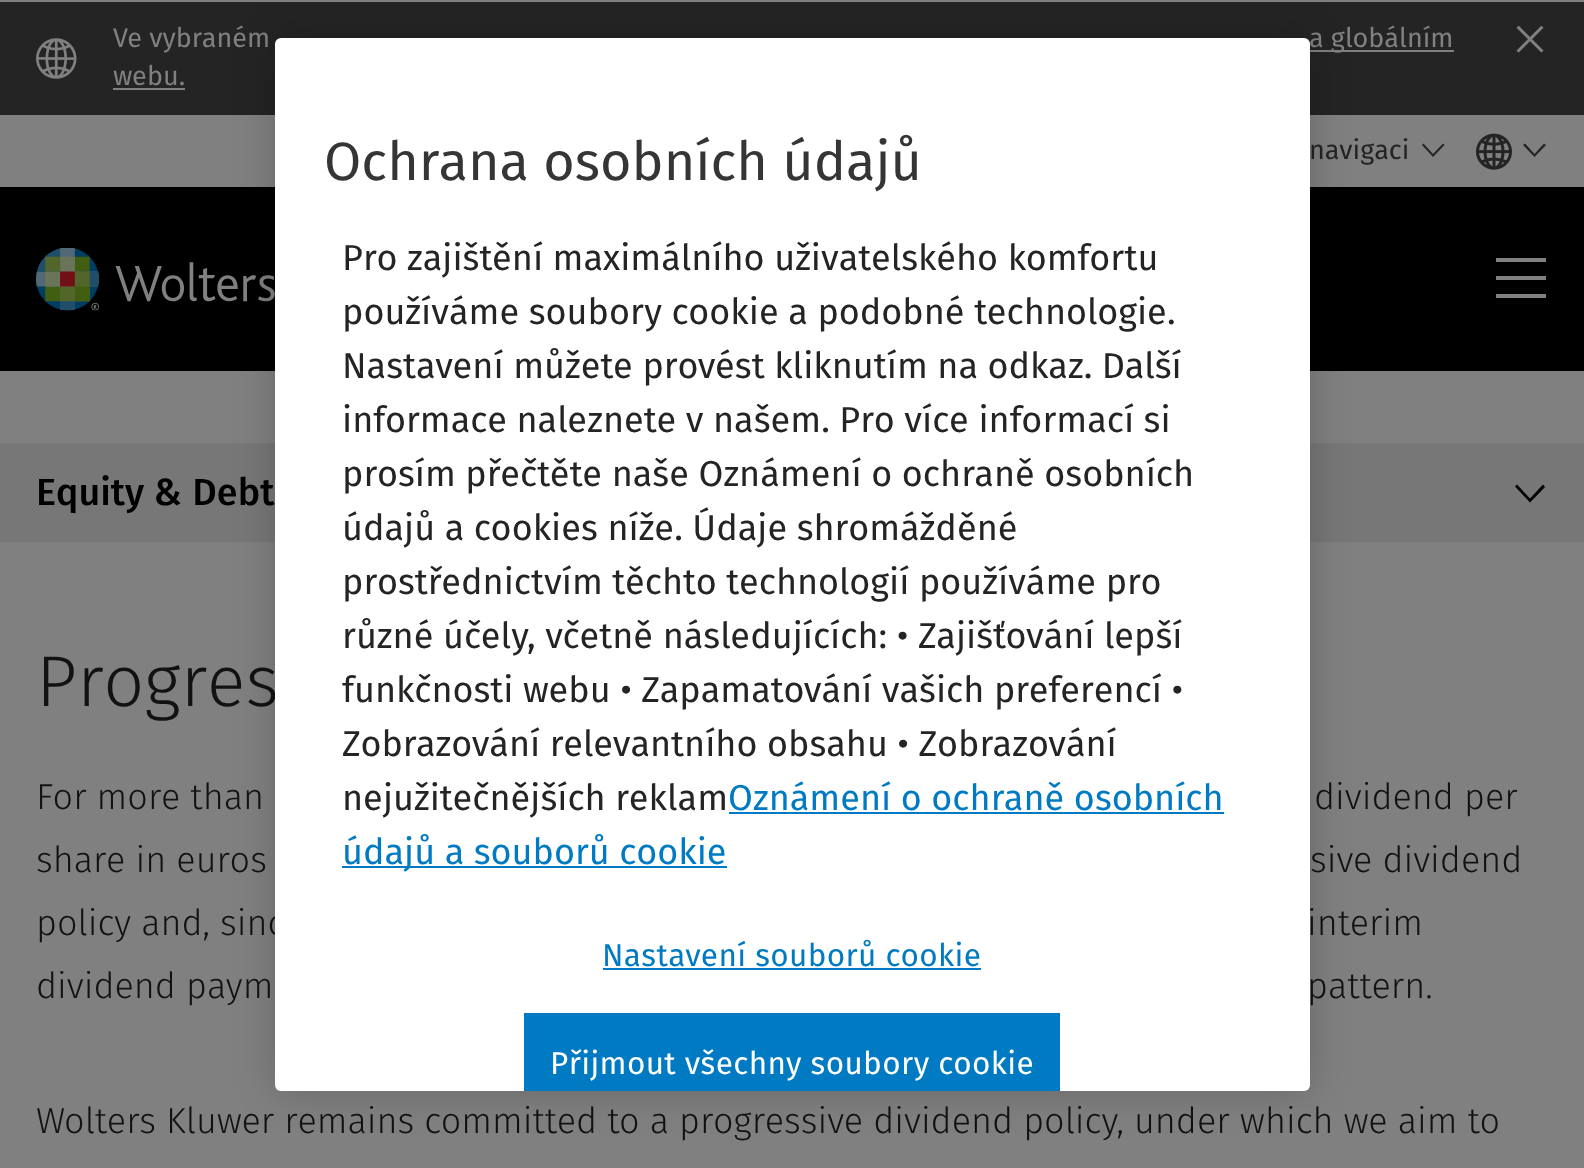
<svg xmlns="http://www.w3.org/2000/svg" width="1584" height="1168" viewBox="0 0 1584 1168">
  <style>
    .t1 { font: 27px Fira Sans; fill: #808080; }
    .t2 { font: 27px Fira Sans; fill: #242424; }
    .t3 { font: 500 37.75px Fira Sans; fill: #000; }
    .t4 { font: 300 72px Fira Sans; fill: #121212; }
    .t5 { font: 300 36px Fira Sans; fill: #121212; }
    .t6 { font: 54px Fira Sans; fill: #353535; }
    .t7 { font: 36px Fira Sans; fill: #242424; }
    .t8 { font: 36px Fira Sans; fill: #007ac3; }
    .t9 { font: 31.5px Fira Sans; letter-spacing: 0.35px; fill: #007ac3; }
    .t10 { font: 31.5px Fira Sans; letter-spacing: 0.35px; fill: #fff; }
  </style>
  <rect width="100%" height="100%" fill="#808080"/>
  <rect x="0" y="2" width="1584" height="113" fill="#242424"/>
  <image x="36" y="38" width="41" height="41" href="images/1.png"/>
  <text x="113" y="47" class="t1">Ve vybraném</text>
  <rect x="1310" y="50" width="144" height="2" fill="#808080"/>
  <text x="1309" y="47" class="t1">a globálním</text>
  <text x="113" y="85" class="t1">webu.</text>
  <rect x="113" y="88" width="72" height="2" fill="#808080"/>
  <image x="1516" y="25" width="28" height="28" href="images/2.png"/>
  <text x="1309" y="159" class="t2">navigaci</text>
  <path d="M1422 145L1433 157L1444.5 145L1443 143.5L1433 154L1423.5 143.5Z" fill="#242424"/>
  <image x="1476" y="133" width="36" height="37" href="images/3.png"/>
  <path d="M1523 145L1534.5 157L1546 145L1544 143.5L1534.5 154L1525 143.5Z" fill="#242424"/>
  <rect x="0" y="187" width="1584" height="184" fill="#000"/>
  <image x="36" y="248" width="239" height="63" href="images/4.png"/>
  <path d="M1496 258V262H1546V258ZM1496 280H1546V276H1496ZM1496 298H1546V294H1496Z" fill="#808080"/>
  <rect x="0" y="443" width="1584" height="99" fill="#777"/>
  <text x="36" y="505" class="t3">Equity &amp; Debt</text>
  <path d="M1515 486.5L1530 502.5L1545 487L1543 484.5L1530 498.5L1517 484.5Z" fill="#000"/>
  <text x="36" y="706" class="t4">Progres</text>
  <text x="36" y="809" class="t5">For more than</text>
  <text x="1314" y="809" class="t5">dividend per</text>
  <text x="36" y="872" class="t5">share in euros</text>
  <text x="1310" y="872" class="t5">sive dividend</text>
  <text x="36" y="935" class="t5">policy and, sinc</text>
  <text x="1307" y="935" class="t5">interim</text>
  <text x="36" y="998" class="t5">dividend paym</text>
  <text x="1307" y="998" class="t5">pattern.</text>
  <text x="36" y="1133" class="t5">Wolters Kluwer remains committed to a progressive dividend policy, under which we aim to</text>
  <rect x="275" y="38" width="1035" height="1053" rx="6" fill="#00000033" filter="blur(20px)"/>
  <rect x="275" y="38" width="1035" height="1053" rx="6" fill="#fff"/>
  <text x="324" y="180" class="t6">Ochrana osobních údajů</text>
  <text x="342" y="270" class="t7">Pro zajištění maximálního uživatelského komfortu</text>
  <text x="342" y="324" class="t7">používáme soubory cookie a podobné technologie.</text>
  <text x="342" y="378" class="t7">Nastavení můžete provést kliknutím na odkaz. Další</text>
  <text x="342" y="432" class="t7">informace naleznete v našem. Pro více informací si</text>
  <text x="342" y="486" class="t7">prosím přečtěte naše Oznámení o ochraně osobních</text>
  <text x="342" y="540" class="t7">údajů a cookies níže. Údaje shromážděné</text>
  <text x="342" y="594" class="t7">prostřednictvím těchto technologií používáme pro</text>
  <text x="342" y="648" class="t7">různé účely, včetně následujících: • Zajišťování lepší</text>
  <text x="342" y="702" class="t7">funkčnosti webu • Zapamatování vašich preferencí •</text>
  <text x="342" y="756" class="t7">Zobrazování relevantního obsahu • Zobrazování</text>
  <text x="342" y="810" class="t7">nejužitečnějších reklam</text>
  <text x="728" y="810" class="t8">Oznámení o ochraně osobních</text>
  <rect x="729" y="812" width="495" height="2" fill="#007ac3"/>
  <rect x="342" y="866" width="385" height="2" fill="#007ac3"/>
  <text x="342" y="864" class="t8">údajů a souborů cookie</text>
  <text x="602" y="966" class="t9">Nastavení souborů cookie</text>
  <rect x="603" y="968" width="378" height="2" fill="#007ac3"/>
  <rect x="524" y="1013" width="536" height="78" fill="#007ac3"/>
  <text x="550" y="1074" class="t10">Přijmout všechny soubory cookie</text>
</svg>
